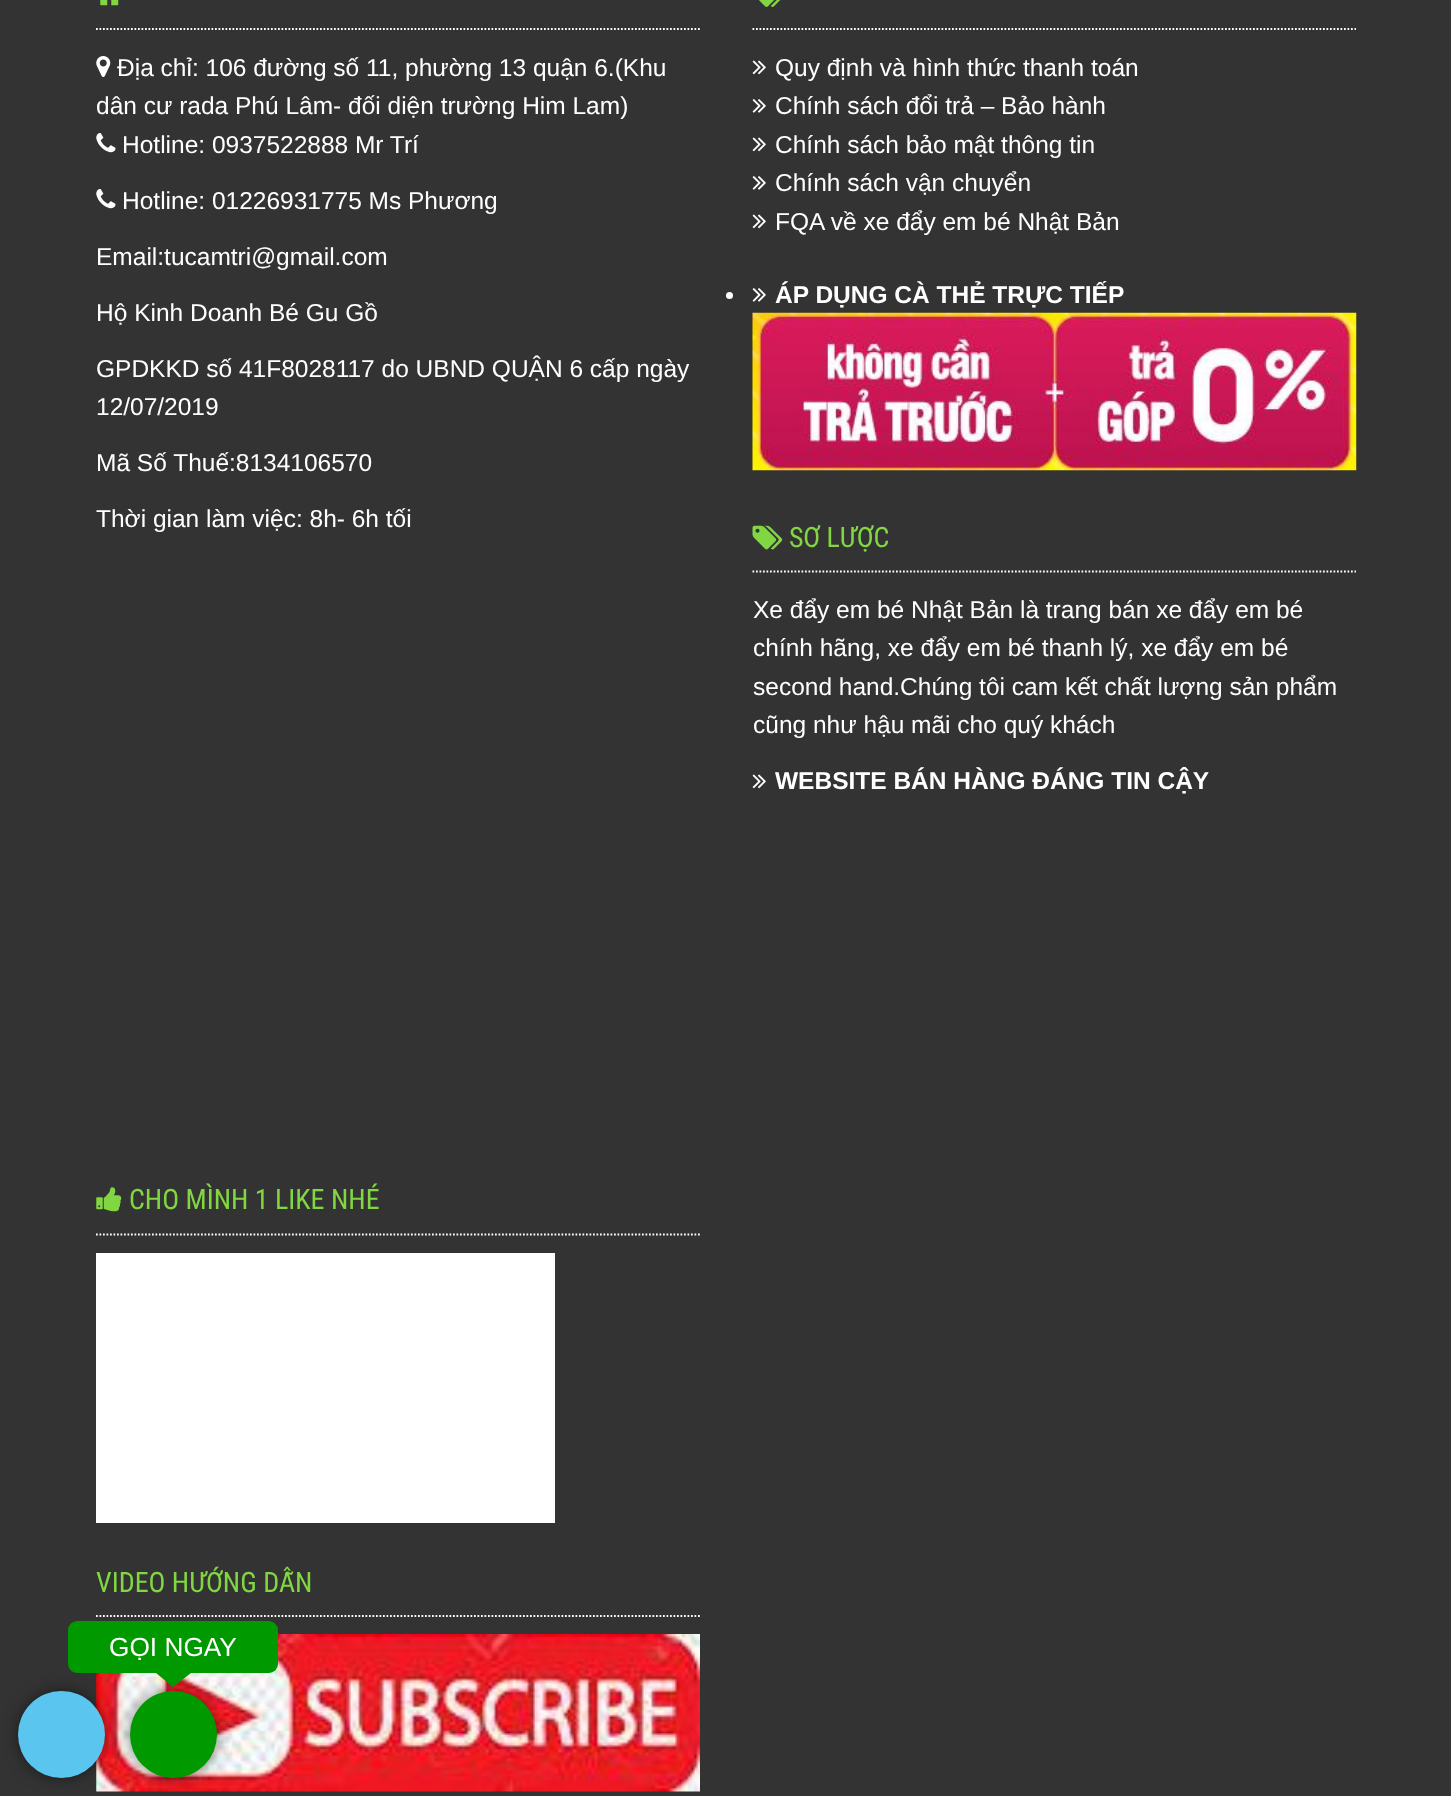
<svg xmlns="http://www.w3.org/2000/svg" width="1451" height="1796" viewBox="0 0 1451 1796">
  <style>
    .t1 { font: 24.5px Liberation Sans; fill: #fff; }
    .t2 { font: bold 24.5px Liberation Sans; fill: #fff; }
    .t3 { font: 28px Roboto Condensed; fill: #81d742; }
    .t4 { font: 26.25px Liberation Sans; fill: #fff; }
  </style>
  <rect width="100%" height="100%" fill="#333"/>
  <path d="M96 29H700" fill="none" stroke="#fff" stroke-width="1.8" stroke-dasharray="1.75 1.75"/>
  <image x="100" y="0" width="19" height="6" href="images/1.png"/>
  <image x="96" y="56" width="15" height="21" href="images/2.png"/>
  <text x="117" y="76" class="t1">Địa chỉ: 106 đường số 11, phường 13 quận 6.(Khu</text>
  <text x="96" y="114" class="t1">dân cư rada Phú Lâm- đối diện trường Him Lam)</text>
  <image x="96" y="133" width="20" height="20" href="images/3.png"/>
  <text x="122" y="153" class="t1">Hotline: 0937522888 Mr Trí</text>
  <image x="96" y="189" width="20" height="20" href="images/3.png"/>
  <text x="122" y="209" class="t1">Hotline: 01226931775 Ms Phương</text>
  <text x="96" y="265" class="t1">Email:tucamtri@gmail.com</text>
  <text x="96" y="321" class="t1">Hộ Kinh Doanh Bé Gu Gồ</text>
  <text x="96" y="377" class="t1">GPDKKD số 41F8028117 do UBND QUẬN 6 cấp ngày</text>
  <text x="96" y="415" class="t1">12/07/2019</text>
  <text x="96" y="471" class="t1">Mã Số Thuế:8134106570</text>
  <text x="96" y="527" class="t1">Thời gian làm việc: 8h- 6h tối</text>
  <path d="M752.5 29H1356" fill="none" stroke="#fff" stroke-width="1.8" stroke-dasharray="1.75 1.75"/>
  <image x="759" y="0" width="22" height="7" href="images/4.png"/>
  <image x="752" y="60" width="14" height="15" href="images/5.png"/>
  <text x="775" y="76" class="t1">Quy định và hình thức thanh toán</text>
  <image x="752" y="99" width="14" height="14" href="images/6.png"/>
  <text x="775" y="114" class="t1">Chính sách đổi trả – Bảo hành</text>
  <image x="752" y="137" width="14" height="15" href="images/5.png"/>
  <text x="775" y="153" class="t1">Chính sách bảo mật thông tin</text>
  <image x="752" y="176" width="14" height="14" href="images/6.png"/>
  <text x="775" y="191" class="t1">Chính sách vận chuyển</text>
  <image x="752" y="214" width="14" height="15" href="images/5.png"/>
  <text x="775" y="230" class="t1">FQA về xe đẩy em bé Nhật Bản</text>
  <circle cx="729.5" cy="295.5" r="3.5" fill="#fff"/>
  <image x="752" y="288" width="14" height="14" href="images/6.png"/>
  <text x="775" y="303" class="t2">ÁP DỤNG CÀ THẺ TRỰC TIẾP</text>
  <image x="752" y="312" width="605" height="159" href="images/7.png"/>
  <path d="M752.5 571.5H1356" fill="none" stroke="#fff" stroke-width="1.8" stroke-dasharray="1.75 1.75"/>
  <image x="752" y="525" width="31" height="25" href="images/8.png"/>
  <text x="789" y="547" class="t3">SƠ LƯỢC</text>
  <text x="753" y="618" class="t1">Xe đẩy em bé Nhật Bản là trang bán xe đẩy em bé</text>
  <text x="753" y="656" class="t1">chính hãng, xe đẩy em bé thanh lý, xe đẩy em bé</text>
  <text x="753" y="695" class="t1">second hand.Chúng tôi cam kết chất lượng sản phẩm</text>
  <text x="753" y="733" class="t1">cũng như hậu mãi cho quý khách</text>
  <image x="752" y="774" width="14" height="15" href="images/5.png"/>
  <text x="775" y="789" class="t2">WEBSITE BÁN HÀNG ĐÁNG TIN CẬY</text>
  <path d="M96 1234.5H700" fill="none" stroke="#fff" stroke-width="1.8" stroke-dasharray="1.75 1.75"/>
  <image x="96" y="1187" width="26" height="25" href="images/9.png"/>
  <text x="129" y="1209" class="t3">CHO MÌNH 1 LIKE NHÉ</text>
  <rect x="96" y="1253" width="459" height="270" fill="#fff"/>
  <path d="M96 1616H700" fill="none" stroke="#fff" stroke-width="1.8" stroke-dasharray="1.75 1.75"/>
  <text x="96" y="1592" class="t3">VIDEO HƯỚNG DẪN</text>
  <image x="96" y="1634" width="604" height="158" href="images/10.png"/>
  <rect x="133" y="1694" width="81" height="81" rx="40.5" fill="#000000b3" filter="blur(9px)"/>
  <rect x="21" y="1694" width="81" height="81" rx="40.5" fill="#000000b3" filter="blur(9px)"/>
  <rect x="68" y="1621" width="210" height="52" rx="9" fill="#090"/>
  <text x="109" y="1656" class="t4">GỌI NGAY</text>
  <path d="M156 1673H191L173 1687Z" fill="#090"/>
  <circle cx="173.5" cy="1734.5" r="43.5" fill="#090"/>
  <circle cx="61.5" cy="1734.5" r="43.5" fill="#5ac5ef"/>
</svg>
